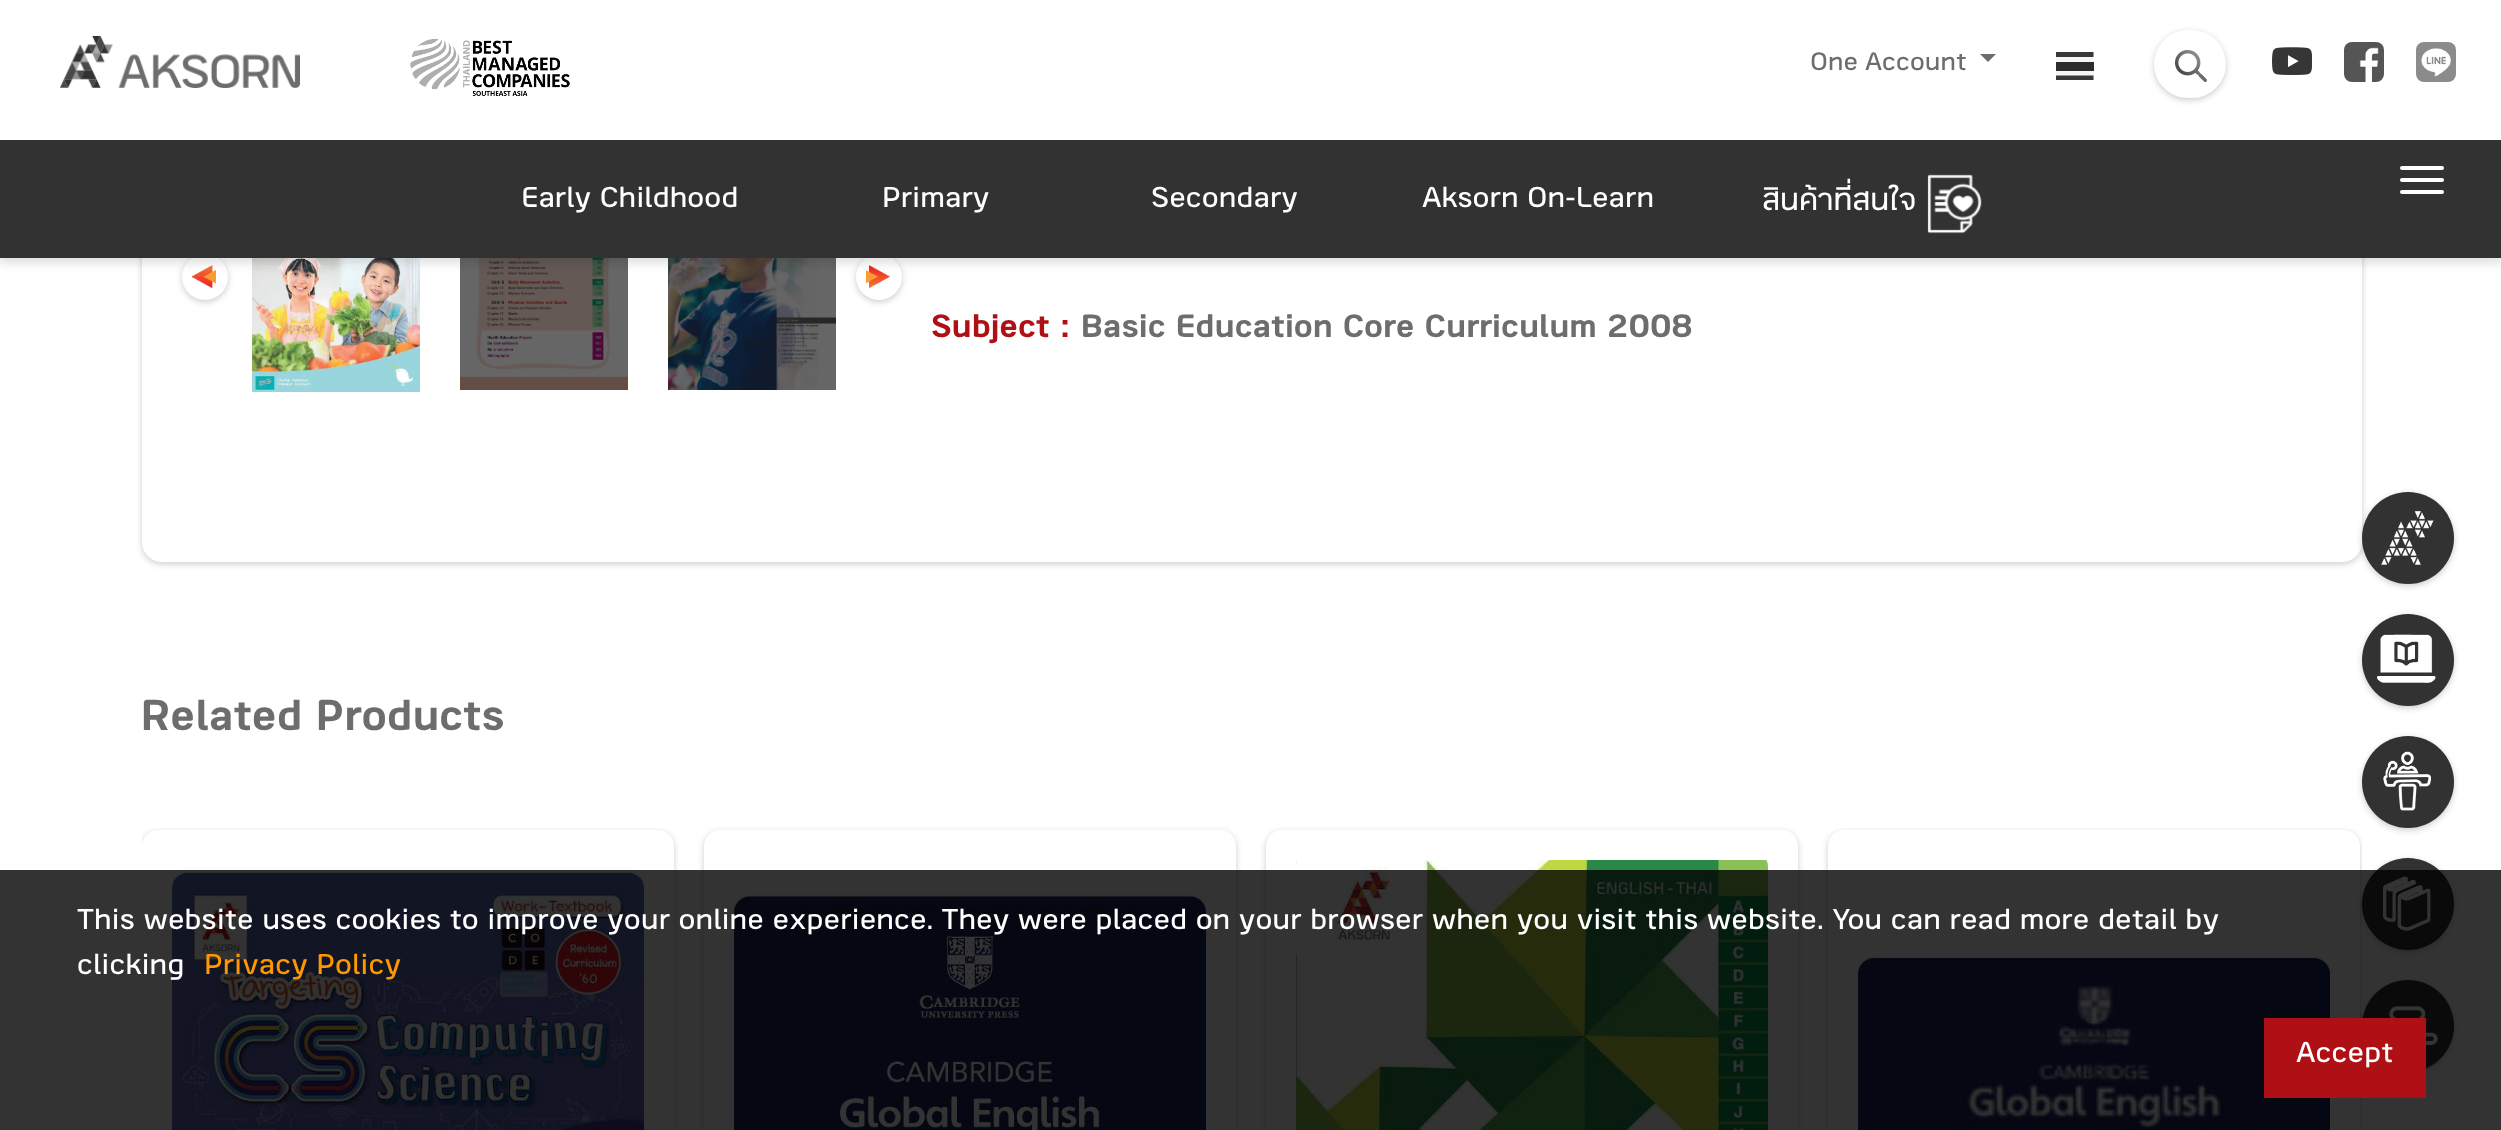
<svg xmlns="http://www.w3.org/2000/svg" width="2501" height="1130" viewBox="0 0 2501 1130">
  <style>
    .t1 { font: 28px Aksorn; fill: #6c6d6f; }
    .t2 { font: 32px Aksorn; fill: #fff; }
    .t3 { font: bold 36px Aksorn; fill: #af1015; }
    .t4 { font: bold 36px Aksorn; fill: #6c6d6f; }
    .t5 { font: bold 48px Aksorn; fill: #6c6d6f; }
    .t6 { font: 32px Aksorn; fill: #ff9800; }
  </style>
  <defs>
    <clipPath id="clip1"><rect x="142" y="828" width="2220" height="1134"/></clipPath>
    <clipPath id="clip2"><rect x="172" y="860" width="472" height="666"/></clipPath>
    <clipPath id="clip3"><rect x="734" y="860" width="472" height="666"/></clipPath>
    <clipPath id="clip4"><rect x="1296" y="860" width="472" height="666"/></clipPath>
    <clipPath id="clip5"><rect x="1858" y="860" width="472" height="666"/></clipPath>
  </defs>
  <rect width="100%" height="100%" fill="#fff"/>
  <rect x="142" y="-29" width="2220" height="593" rx="20" fill="#00000033" filter="blur(3px)"/>
  <rect x="142" y="-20" width="2220" height="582" rx="20" fill="#fff"/>
  <rect x="182" y="256" width="46" height="46" rx="23" fill="#00000033" filter="blur(3px)"/>
  <circle cx="205" cy="277" r="23" fill="#fff"/>
  <image x="192" y="265" width="24" height="24" href="images/8.png"/>
  <image x="252" y="258" width="168" height="134" href="images/9.png"/>
  <image x="460" y="258" width="168" height="132" href="images/10.png"/>
  <image x="668" y="258" width="168" height="132" href="images/11.png"/>
  <rect x="856" y="256" width="46" height="46" rx="23" fill="#00000033" filter="blur(3px)"/>
  <circle cx="879" cy="277" r="23" fill="#fff"/>
  <image x="866" y="265" width="24" height="24" href="images/12.png"/>
  <rect x="-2" y="0" width="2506" height="262" fill="#00000026" filter="blur(6px)"/>
  <rect x="0" y="0" width="2501" height="140" fill="#fff"/>
  <image x="60" y="36" width="240" height="52" href="images/1.png"/>
  <image x="410" y="38" width="160" height="58" href="images/2.png"/>
  <text x="1810" y="70" class="t1">One Account</text>
  <path d="M1980 54H1996L1988 62Z" fill="#6d6d6d"/>
  <rect x="2056" y="52" width="38" height="28" fill="#f5f5f5"/>
  <rect x="2056" y="62" width="38" height="9" fill="#2d2d2d"/>
  <path d="M2056 52H2093.5V57H2056ZM2056 75.5H2093.5V80H2056Z" fill="#383838" fill-rule="evenodd"/>
  <rect x="2154" y="32" width="72" height="68" rx="34" fill="#00000033" filter="blur(3px)"/>
  <rect x="2154" y="30" width="72" height="68" rx="34" fill="#fff"/>
  <image x="2175" y="50" width="32" height="32" href="images/3.png"/>
  <image x="2272" y="47" width="40" height="28" href="images/4.png"/>
  <image x="2344" y="42" width="40" height="40" href="images/5.png"/>
  <image x="2416" y="42" width="40" height="40" href="images/6.png"/>
  <rect x="0" y="140" width="2501" height="118" fill="#323232"/>
  <text x="521" y="207" class="t2">Early Childhood</text>
  <text x="882" y="207" class="t2">Primary</text>
  <text x="1151" y="207" class="t2">Secondary</text>
  <text x="1422" y="207" class="t2">Aksorn On-Learn</text>
  <text x="1762" y="210" class="t2">สินค้าที่สนใจ</text>
  <image x="1927" y="174" width="55" height="60" href="images/7.png"/>
  <rect x="2400" y="166" width="44" height="4" rx="2" fill="#fff"/>
  <rect x="2400" y="178" width="44" height="4" rx="2" fill="#fff"/>
  <rect x="2400" y="190" width="44" height="4" rx="2" fill="#fff"/>
  <text x="931" y="337" class="t3">Subject :</text>
  <text x="1081" y="337" class="t4">Basic Education Core Curriculum 2008</text>
  <text x="141" y="730" class="t5">Related Products</text>
  <g clip-path="url(#clip1)">
    <rect x="142" y="832" width="532" height="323" rx="16" fill="#00000033" filter="blur(3px)"/>
  </g>
  <rect x="142" y="830" width="532" height="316" rx="16" fill="#fff"/>
  <g clip-path="url(#clip2)">
    <rect x="172" y="874" width="472" height="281" rx="16" fill="#00000033" filter="blur(3px)"/>
  </g>
  <image x="172" y="872" width="472" height="258" href="images/13.png"/>
  <rect x="704" y="832" width="532" height="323" rx="16" fill="#00000033" filter="blur(3px)"/>
  <rect x="704" y="830" width="532" height="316" rx="16" fill="#fff"/>
  <g clip-path="url(#clip3)">
    <rect x="734" y="898" width="472" height="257" rx="16" fill="#00000033" filter="blur(3px)"/>
  </g>
  <image x="734" y="896" width="472" height="234" href="images/14.png"/>
  <rect x="1266" y="832" width="532" height="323" rx="16" fill="#00000033" filter="blur(3px)"/>
  <rect x="1266" y="830" width="532" height="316" rx="16" fill="#fff"/>
  <g clip-path="url(#clip4)">
    <rect x="1296" y="854" width="472" height="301" rx="16" fill="#00000033" filter="blur(3px)"/>
  </g>
  <image x="1296" y="860" width="472" height="270" href="images/15.png"/>
  <g clip-path="url(#clip1)">
    <rect x="1828" y="832" width="532" height="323" rx="16" fill="#00000033" filter="blur(3px)"/>
  </g>
  <rect x="1828" y="830" width="532" height="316" rx="16" fill="#fff"/>
  <g clip-path="url(#clip5)">
    <rect x="1858" y="960" width="472" height="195" rx="16" fill="#00000033" filter="blur(3px)"/>
  </g>
  <image x="1858" y="958" width="472" height="172" href="images/16.png"/>
  <rect x="2362" y="494" width="92" height="92" rx="46" fill="#00000033" filter="blur(3px)"/>
  <circle cx="2408" cy="538" r="46" fill="#323232"/>
  <image x="2381" y="511" width="53" height="54" href="images/17.png"/>
  <rect x="2362" y="616" width="92" height="92" rx="46" fill="#00000033" filter="blur(3px)"/>
  <circle cx="2408" cy="660" r="46" fill="#323232"/>
  <image x="2377" y="634" width="59" height="49" href="images/18.png"/>
  <rect x="2362" y="738" width="92" height="92" rx="46" fill="#00000033" filter="blur(3px)"/>
  <circle cx="2408" cy="782" r="46" fill="#323232"/>
  <image x="2383" y="751" width="48" height="60" href="images/19.png"/>
  <rect x="2362" y="860" width="92" height="92" rx="46" fill="#00000033" filter="blur(3px)"/>
  <circle cx="2408" cy="904" r="46" fill="#323232"/>
  <image x="2383" y="876" width="48" height="55" href="images/20.png"/>
  <rect x="2362" y="982" width="92" height="92" rx="46" fill="#00000033" filter="blur(3px)"/>
  <circle cx="2408" cy="1026" r="46" fill="#323232"/>
  <image x="2389" y="1006" width="49" height="39" href="images/21.png"/>
  <rect x="0" y="870" width="2501" height="260" fill="#000000cc"/>
  <text x="77" y="929" class="t2">This website uses cookies to improve your online experience. They were placed on your browser when you visit this website. You can read more detail by</text>
  <text x="77" y="974" class="t2">clicking</text>
  <text x="204" y="974" class="t6">Privacy Policy</text>
  <rect x="2264" y="1018" width="162" height="80" fill="#af1015"/>
  <text x="2296" y="1062" class="t2">Accept</text>
</svg>
